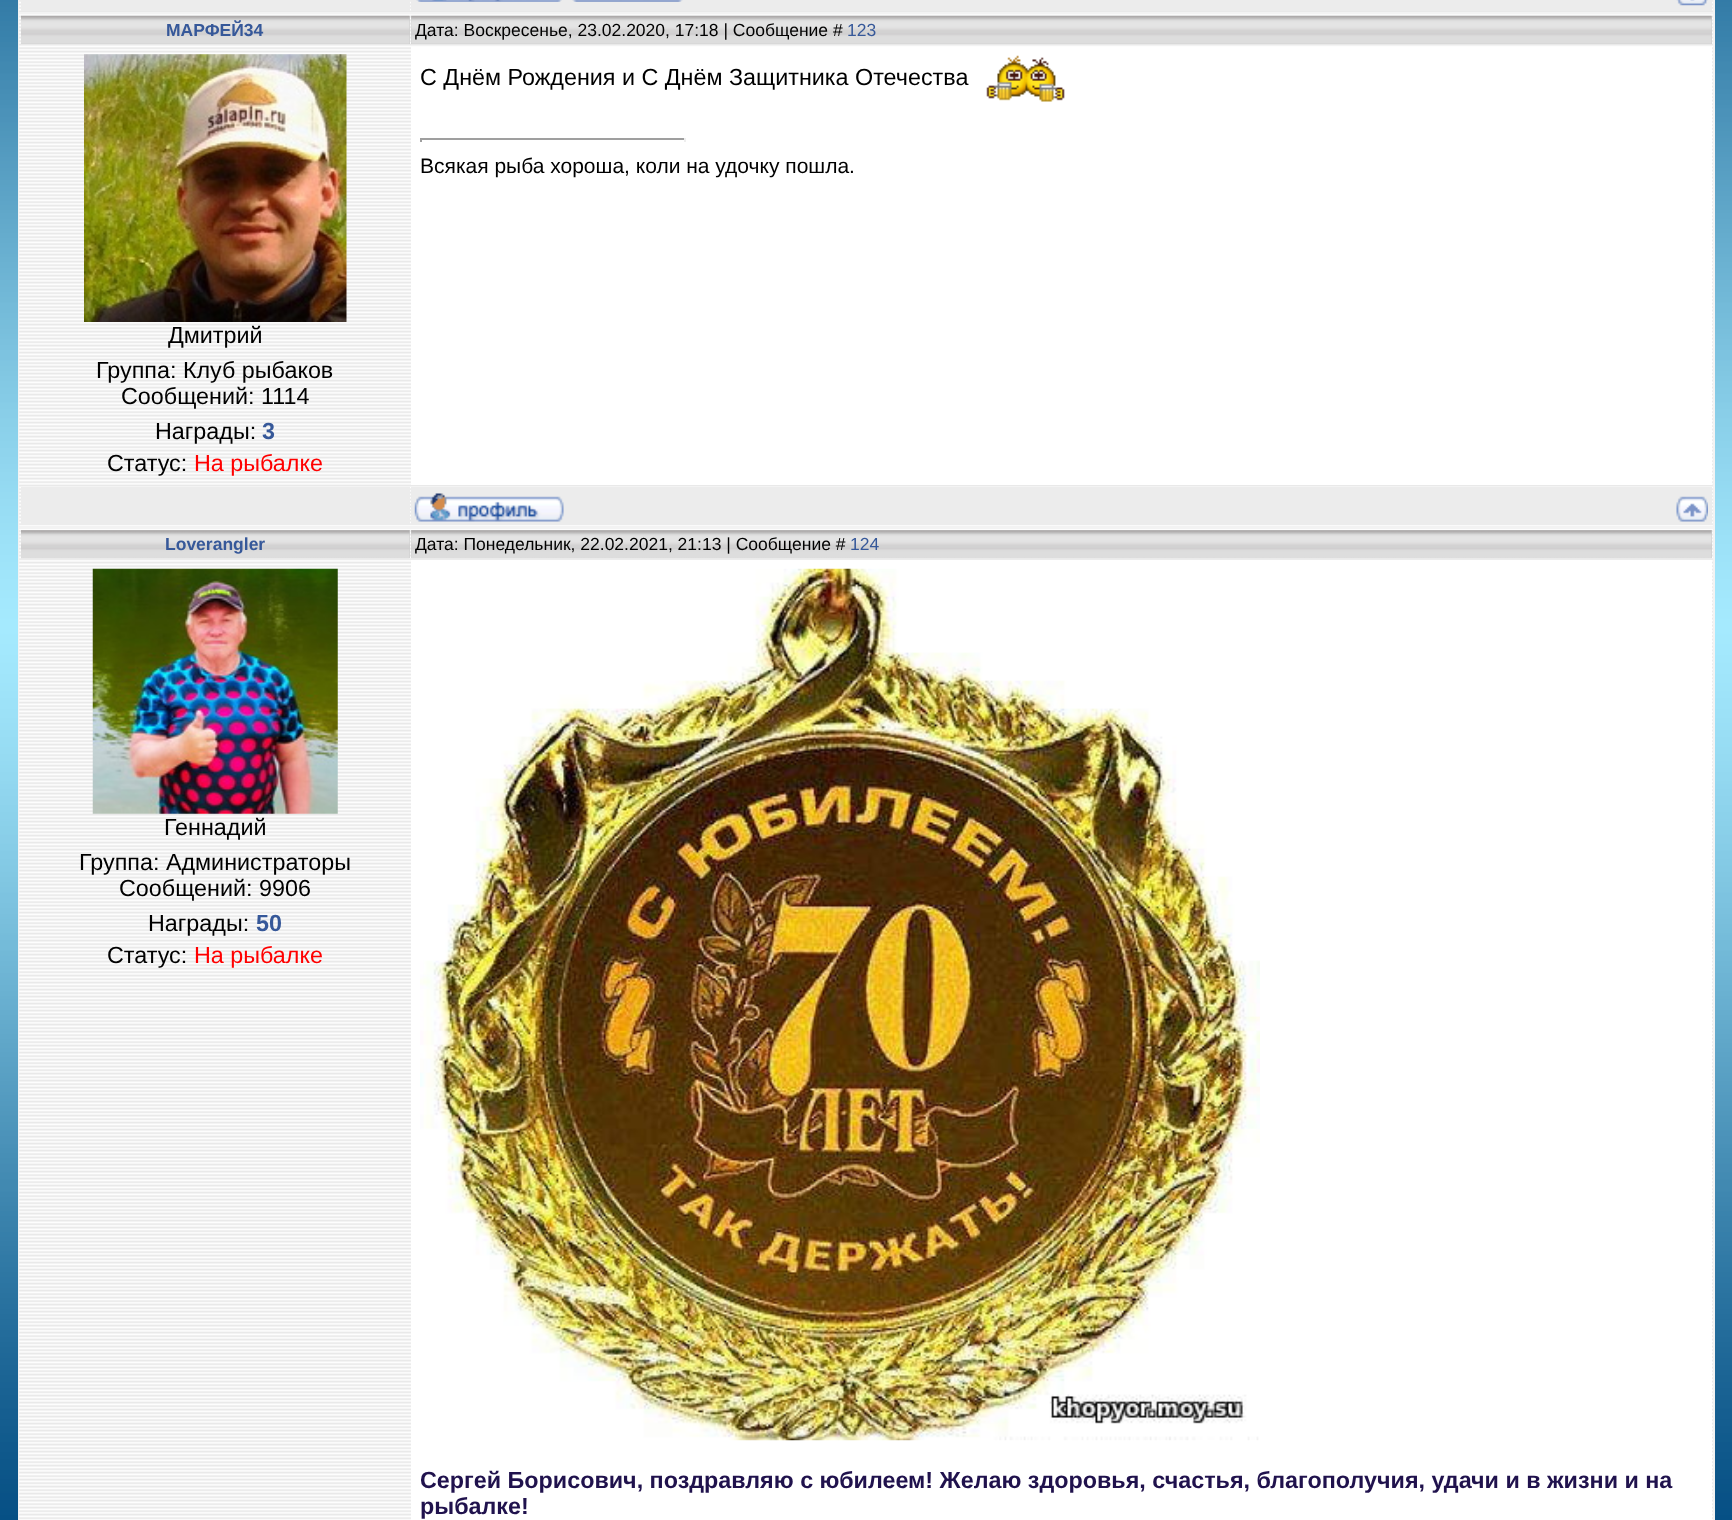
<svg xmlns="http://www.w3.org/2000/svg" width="1732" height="1520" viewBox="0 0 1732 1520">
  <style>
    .t1 { font: bold 17.5px Liberation Sans; fill: #365899; }
    .t2 { font: 17.5px Liberation Sans; fill: #000; }
    .t3 { font: 17.5px Liberation Sans; fill: #365899; }
    .t4 { font: 23.33px Liberation Sans; fill: #000; }
    .t5 { font: 21px Liberation Sans; fill: #000; }
    .t6 { font: bold 23.33px Liberation Sans; fill: #365899; }
    .t7 { font: 23.33px Liberation Sans; fill: #f00; }
    .t8 { font: bold 23.33px Liberation Sans; fill: #20124d; }
  </style>
  <rect width="100%" height="100%" fill="#fff"/>
  <image x="0" y="0" width="1732" height="1520" href="images/1.png"/>
  <rect x="18" y="0" width="1697" height="1520" fill="#f3f3f3"/>
  <image x="19" y="0" width="1694" height="12" href="images/2.png"/>
  <rect x="21" y="1" width="389" height="10" fill="#ececec"/>
  <rect x="411" y="1" width="1301" height="10" fill="#ececec"/>
  <image x="416" y="0" width="146" height="2" href="images/3.png"/>
  <image x="572" y="0" width="111" height="2" href="images/4.png"/>
  <image x="1676" y="0" width="32" height="6" href="images/5.png"/>
  <image x="19" y="14" width="1694" height="512" href="images/6.png"/>
  <rect x="21" y="16" width="389" height="28" fill="#ccc"/>
  <image x="21" y="15" width="389" height="29" href="images/7.png"/>
  <text x="166" y="36" class="t1">МАРФЕЙ34</text>
  <rect x="411" y="16" width="1301" height="28" fill="#ccc"/>
  <image x="411" y="15" width="1301" height="29" href="images/8.png"/>
  <text x="415" y="36" class="t2">Дата: Воскресенье, 23.02.2020, 17:18 | Сообщение #</text>
  <text x="847" y="36" class="t3">123</text>
  <rect x="411" y="47" width="1301" height="438" fill="#fff"/>
  <text x="420" y="85" class="t4">С Днём Рождения и С Днём Защитника Отечества</text>
  <image x="986" y="55" width="79" height="47" href="images/9.png"/>
  <rect x="420" y="138" width="266" height="2" fill="#9f9f9f"/>
  <rect x="684" y="138" width="2" height="4" fill="#eee"/>
  <rect x="420" y="138" width="2" height="4" fill="#9f9f9f"/>
  <text x="420" y="173" class="t5">Всякая рыба хороша, коли на удочку пошла.</text>
  <image x="84" y="54" width="263" height="268" href="images/10.png"/>
  <text x="168" y="343" class="t4">Дмитрий</text>
  <text x="96" y="378" class="t4">Группа: Клуб рыбаков</text>
  <text x="121" y="404" class="t4">Сообщений: 1114</text>
  <text x="155" y="439" class="t4">Награды:</text>
  <text x="262" y="439" class="t6">3</text>
  <text x="107" y="471" class="t4">Статус:</text>
  <text x="194" y="471" class="t7">На рыбалке</text>
  <rect x="21" y="487" width="389" height="37" fill="#ececec"/>
  <rect x="411" y="487" width="1301" height="37" fill="#ececec"/>
  <image x="414" y="493" width="150" height="29" href="images/11.png"/>
  <image x="1676" y="496" width="32" height="26" href="images/12.png"/>
  <image x="19" y="529" width="1694" height="991" href="images/13.png"/>
  <rect x="21" y="530" width="389" height="28" fill="#ccc"/>
  <image x="21" y="530" width="389" height="29" href="images/14.png"/>
  <text x="165" y="550" class="t1">Loverangler</text>
  <rect x="411" y="530" width="1301" height="28" fill="#ccc"/>
  <image x="411" y="530" width="1301" height="29" href="images/15.png"/>
  <text x="415" y="550" class="t2">Дата: Понедельник, 22.02.2021, 21:13 | Сообщение #</text>
  <text x="850" y="550" class="t3">124</text>
  <image x="92" y="568" width="246" height="246" href="images/16.png"/>
  <text x="164" y="835" class="t4">Геннадий</text>
  <text x="79" y="870" class="t4">Группа: Администраторы</text>
  <text x="119" y="896" class="t4">Сообщений: 9906</text>
  <text x="148" y="931" class="t4">Награды:</text>
  <text x="256" y="931" class="t6">50</text>
  <text x="107" y="963" class="t4">Статус:</text>
  <text x="194" y="963" class="t7">На рыбалке</text>
  <rect x="411" y="560" width="1301" height="960" fill="#fff"/>
  <image x="420" y="568" width="840" height="873" href="images/17.png"/>
  <text x="420" y="1488" class="t8">Сергей Борисович, поздравляю с юбилеем! Желаю здоровья, счастья, благополучия, удачи и в жизни и на</text>
  <text x="420" y="1514" class="t8">рыбалке!</text>
</svg>
